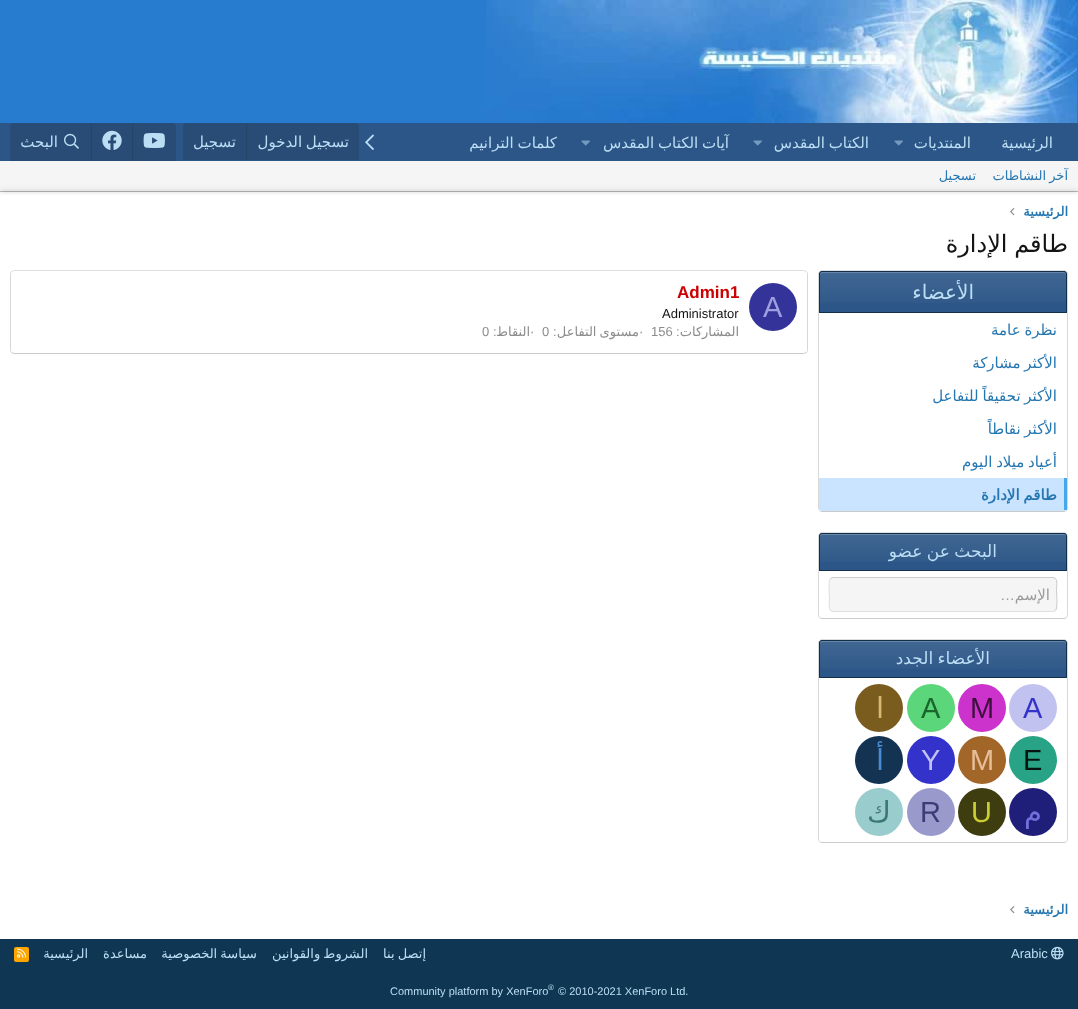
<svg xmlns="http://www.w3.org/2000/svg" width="1078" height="1009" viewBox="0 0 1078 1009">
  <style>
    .t1 { font: 15px DejaVu Sans; direction: rtl; fill: #bcdef5; }
    .t2 { font: 13px DejaVu Sans; direction: rtl; fill: #2577b1; }
    .t3 { font: bold 13px DejaVu Sans; direction: rtl; fill: #2577b1; }
    .t4 { font: 24px DejaVu Sans; direction: rtl; fill: #141414; }
    .t5 { font: 20px DejaVu Sans; direction: rtl; fill: #bcdef5; }
    .t6 { font: 15px DejaVu Sans; direction: rtl; fill: #2577b1; }
    .t7 { font: bold 15px DejaVu Sans; direction: rtl; fill: #2577b1; }
    .t8 { font: 17px DejaVu Sans; direction: rtl; fill: #bcdef5; }
    .t9 { font: 15px DejaVu Sans; direction: rtl; fill: #9b9b9b; }
    .t10 { font: 15px Liberation Sans; direction: rtl; fill: #9b9b9b; }
    .t11 { font: 29px Liberation Sans; fill: #33c; }
    .t12 { font: 29px Liberation Sans; fill: #3d0f3d; }
    .t13 { font: 29px Liberation Sans; fill: #1a662d; }
    .t14 { font: 29px DejaVu Sans; direction: rtl; fill: #dbb870; }
    .t15 { font: 29px Liberation Sans; fill: #051411; }
    .t16 { font: 29px Liberation Sans; fill: #e6bf99; }
    .t17 { font: 29px Liberation Sans; fill: #c2c2f0; }
    .t18 { font: 29px DejaVu Sans; direction: rtl; fill: #478cd1; }
    .t19 { font: 29px DejaVu Sans; direction: rtl; fill: #7070db; }
    .t20 { font: 29px Liberation Sans; fill: #cc3; }
    .t21 { font: 29px Liberation Sans; fill: #3c3c77; }
    .t22 { font: 29px DejaVu Sans; direction: rtl; fill: #3c7777; }
    .t23 { font: 29px Liberation Sans; fill: #9f9fdf; }
    .t24 { font: bold 17px Liberation Sans; fill: #c00; }
    .t25 { font: 13px Liberation Sans; fill: #141414; }
    .t26 { font: 13px DejaVu Sans; direction: rtl; fill: #8c8c8c; }
    .t27 { font: 13px Liberation Sans; fill: #8c8c8c; }
    .t28 { font: 13px Liberation Sans; fill: #bcdef5; }
    .t29 { font: 13px DejaVu Sans; direction: rtl; fill: #bcdef5; }
    .t30 { font: 11px Liberation Sans; fill: #bcdef5; }
    .t31 { font: 8px Liberation Sans; fill: #bcdef5; }
  </style>
  <defs>
    <clipPath id="clip1"><rect x="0" y="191" width="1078" height="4"/></clipPath>
    <linearGradient id="g1" gradientUnits="userSpaceOnUse" x1="943" y1="272" x2="943" y2="312"><stop offset="0" stop-color="#fff" stop-opacity="0.1"/><stop offset="1" stop-color="#fff" stop-opacity="0"/></linearGradient>
    <linearGradient id="g2" gradientUnits="userSpaceOnUse" x1="943" y1="534" x2="943" y2="570"><stop offset="0" stop-color="#fff" stop-opacity="0.1"/><stop offset="1" stop-color="#fff" stop-opacity="0"/></linearGradient>
    <linearGradient id="g3" gradientUnits="userSpaceOnUse" x1="943" y1="641" x2="943" y2="677"><stop offset="0" stop-color="#fff" stop-opacity="0.1"/><stop offset="1" stop-color="#fff" stop-opacity="0"/></linearGradient>
  </defs>
  <rect width="100%" height="100%" fill="#287ccf"/>
  <image x="486" y="0" width="591" height="123" href="images/1.png"/>
  <rect x="0" y="161" width="1078" height="30" fill="#f5f5f5"/>
  <rect x="0" y="191" width="1078" height="1" fill="#cbcbcb"/>
  <rect x="0" y="192" width="1078" height="747" fill="#00000033" filter="blur(3px)"/>
  <rect x="0" y="192" width="1078" height="747" fill="#fff"/>
  <g clip-path="url(#clip1)">
    <rect x="0" y="161" width="1078" height="30" fill="#00000033" filter="blur(3px)"/>
  </g>
  <rect x="0" y="123" width="1078" height="38" fill="#2c5687"/>
  <text x="1053" y="148" class="t1">الرئيسية</text>
  <text x="971" y="148" class="t1">المنتديات</text>
  <image x="894" y="140" width="9" height="6" href="images/2.png"/>
  <text x="869" y="148" word-spacing="-1" class="t1">الكتاب المقدس</text>
  <image x="753" y="140" width="9" height="6" href="images/2.png"/>
  <text x="729" y="148" word-spacing="-1" class="t1">آيات الكتاب المقدس</text>
  <image x="581" y="140" width="9" height="6" href="images/2.png"/>
  <text x="557" y="148" word-spacing="-1" class="t1">كلمات الترانيم</text>
  <image x="365" y="134" width="9" height="16" href="images/3.png"/>
  <path d="M187 123H355C357 123 359 125 359 127V160H183V127C183 125 185 123 187 123Z" fill="#284c76"/>
  <text x="349" y="147" word-spacing="-1" class="t1">تسجيل الدخول</text>
  <rect x="246" y="123" width="1" height="37" fill="#254467"/>
  <text x="236" y="147" class="t1">تسجيل</text>
  <path d="M14 123H172C174 123 176 125 176 127V161H10V127C10 125 12 123 14 123Z" fill="#284c76"/>
  <image x="143" y="133" width="22" height="15" href="images/4.png"/>
  <rect x="132" y="123" width="1" height="38" fill="#254467"/>
  <image x="102" y="130" width="20" height="20" href="images/5.png"/>
  <rect x="91" y="123" width="1" height="37" fill="#254467"/>
  <image x="64" y="133" width="15" height="16" href="images/6.png"/>
  <text x="58" y="147" class="t1">البحث</text>
  <text x="1068" y="180" word-spacing="-1" class="t2">آخر النشاطات</text>
  <text x="976" y="180" class="t2">تسجيل</text>
  <text x="1068" y="216" class="t3">الرئيسية</text>
  <image x="1010" y="208" width="5" height="8" href="images/7.png"/>
  <text x="1068" y="252" word-spacing="-1" class="t4">طاقم الإدارة</text>
  <path d="M819.5 271.5C820 271 821 270.5 822 270.5H1064C1065 270.5 1066 271 1066.5 271.5" fill="none" stroke="#dfdfdf"/>
  <path d="M1066.5 271.5C1067 272 1067.5 273 1067.5 274V508C1067.5 509 1067 510 1066.5 510.5" fill="none" stroke="#d8d8d8"/>
  <path d="M1066.5 510.5C1066 511 1065 511.5 1064 511.5H822C821 511.5 820 511 819.5 510.5" fill="none" stroke="#cbcbcb"/>
  <path d="M819.5 510.5C819 510 818.5 509 818.5 508V274C818.5 273 819 272 819.5 271.5" fill="none" stroke="#d8d8d8"/>
  <path d="M822 271H1064C1065.5 271 1067 272.5 1067 274V313H819V274C819 272.5 820.5 271 822 271Z" fill="#2c5687"/>
  <rect x="819" y="272" width="248" height="31" fill="url(#g1)"/>
  <path d="M822 273H1064C1065 273 1066 274 1066 275V273L1064 272H822C820 272 820 274 820 275C820 274 821 273 822 273Z" fill="#6785a8"/>
  <path d="M822 271.5H1064C1065.5 271.5 1066.5 272.5 1066.5 274V312.5H819.5V274C819.5 272.5 820.5 271.5 822 271.5Z" fill="none" stroke="#13304a"/>
  <text x="974" y="299" class="t5">الأعضاء</text>
  <text x="1057" y="335" word-spacing="-1" class="t6">نظرة عامة</text>
  <text x="1057" y="368" word-spacing="-1" class="t6">الأكثر مشاركة</text>
  <text x="1057" y="401" word-spacing="-1" class="t6">الأكثر تحقيقاً للتفاعل</text>
  <text x="1057" y="434" word-spacing="-1" class="t6">الأكثر نقاطاً</text>
  <text x="1057" y="467" word-spacing="-1" class="t6">أعياد ميلاد اليوم</text>
  <path d="M819 478H1067V508C1067 509.5 1065.5 511 1064 511H822C820.5 511 819 509.5 819 508Z" fill="#cae3ff"/>
  <rect x="1064" y="478" width="3" height="32" fill="#47a7eb"/>
  <text x="1057" y="500" word-spacing="-1" class="t7">طاقم الإدارة</text>
  <path d="M819.5 533.5C820 533 821 532.5 822 532.5H1064C1065 532.5 1066 533 1066.5 533.5" fill="none" stroke="#dfdfdf"/>
  <path d="M1066.5 533.5L1067.5 535.5V615.5L1066.5 617.5" fill="none" stroke="#d8d8d8"/>
  <path d="M1066.5 617.5C1066 618 1065 618.5 1064 618.5H822C821 618.5 820 618 819.5 617.5" fill="none" stroke="#cbcbcb"/>
  <path d="M819.5 617.5L818.5 615.5V535.5L819.5 533.5" fill="none" stroke="#d8d8d8"/>
  <path d="M822 533H1064C1065.5 533 1067 534.5 1067 536V571H819V536C819 534.5 820.5 533 822 533Z" fill="#2c5687"/>
  <rect x="819" y="534" width="248" height="28" fill="url(#g2)"/>
  <path d="M822 535H1064C1065 535 1066 536 1066 537V535L1064 534H822C820 534 820 536 820 537C820 536 821 535 822 535Z" fill="#6785a8"/>
  <path d="M822 533.5H1064C1065.5 533.5 1066.5 534.5 1066.5 536V570.5H819.5V536C819.5 534.5 820.5 533.5 822 533.5Z" fill="none" stroke="#13304a"/>
  <text x="997" y="557" word-spacing="-1" class="t8">البحث عن عضو</text>
  <rect x="829" y="577" width="228" height="35" rx="4" fill="#f5f5f5"/>
  <path d="M830.5 578.5L833 577.5H1053C1058.5 577.5 1056.5 587.5 1056.5 590C1056.5 593.5 1058 608 1055.5 610.5" fill="none" stroke="#cbcbcb"/>
  <path d="M1055.5 610.5L1053 611.5H833C827.5 611.5 829.5 601.5 829.5 599C829.5 595.5 828 581 830.5 578.5" fill="none" stroke="#dfdfdf"/>
  <text x="1050" y="600" class="t9">الإسم</text>
  <text x="1015" y="600" class="t10">…</text>
  <path d="M819.5 640.5C820 640 821 639.5 822 639.5H1064C1065 639.5 1066 640 1066.5 640.5" fill="none" stroke="#dfdfdf"/>
  <path d="M1066.5 640.5C1067 641 1067.5 642 1067.5 643V839C1067.5 840 1067 841 1066.5 841.5" fill="none" stroke="#d8d8d8"/>
  <path d="M1066.5 841.5C1066 842 1065 842.5 1064 842.5H822C821 842.5 820 842 819.5 841.5" fill="none" stroke="#cbcbcb"/>
  <path d="M819.5 841.5C819 841 818.5 840 818.5 839V643C818.5 642 819 641 819.5 640.5" fill="none" stroke="#d8d8d8"/>
  <path d="M822 640H1064C1065.5 640 1067 641.5 1067 643V678H819V643C819 641.5 820.5 640 822 640Z" fill="#2c5687"/>
  <rect x="819" y="641" width="248" height="28" fill="url(#g3)"/>
  <path d="M822 642H1064C1065 642 1066 643 1066 644V642L1064 641H822C820 641 820 643 820 644C820 643 821 642 822 642Z" fill="#6785a8"/>
  <path d="M822 640.5H1064C1065.5 640.5 1066.5 641.5 1066.5 643V677.5H819.5V643C819.5 641.5 820.5 640.5 822 640.5Z" fill="none" stroke="#13304a"/>
  <text x="990" y="664" word-spacing="-1" class="t8">الأعضاء الجدد</text>
  <circle cx="1033" cy="708" r="24" fill="#c2c2f0"/>
  <text x="1023" y="718" class="t11">A</text>
  <circle cx="982" cy="708" r="24" fill="#c3c"/>
  <text x="970" y="718" class="t12">M</text>
  <circle cx="931" cy="708" r="24" fill="#5cd67a"/>
  <text x="921" y="718" class="t13">A</text>
  <circle cx="879" cy="708" r="24" fill="#7a5c1f"/>
  <text x="884" y="718" class="t14">ا</text>
  <circle cx="1033" cy="760" r="24" fill="#29a385"/>
  <text x="1023" y="770" class="t15">E</text>
  <circle cx="982" cy="760" r="24" fill="#a36629"/>
  <text x="970" y="770" class="t16">M</text>
  <circle cx="931" cy="760" r="24" fill="#33c"/>
  <text x="921" y="770" class="t17">Y</text>
  <circle cx="879" cy="760" r="24" fill="#143352"/>
  <text x="884" y="770" class="t18">أ</text>
  <circle cx="1033" cy="812" r="24" fill="#1f1f7a"/>
  <text x="1042" y="822" class="t19">م</text>
  <circle cx="982" cy="812" r="24" fill="#3d3d0f"/>
  <text x="971" y="822" class="t20">U</text>
  <circle cx="931" cy="812" r="24" fill="#99c"/>
  <text x="920" y="822" class="t21">R</text>
  <circle cx="879" cy="812" r="24" fill="#9cc"/>
  <text x="891" y="822" class="t22">ك</text>
  <path d="M11.5 271.5L14 270.5H804L806.5 271.5" fill="none" stroke="#dfdfdf"/>
  <path d="M806.5 271.5L807.5 273.5V350.5L806.5 352.5" fill="none" stroke="#d8d8d8"/>
  <path d="M806.5 352.5L804 353.5H14L11.5 352.5" fill="none" stroke="#cbcbcb"/>
  <path d="M11.5 352.5L10.5 350.5V273.5L11.5 271.5" fill="none" stroke="#d8d8d8"/>
  <circle cx="773" cy="307" r="24" fill="#339"/>
  <text x="763" y="317" class="t23">A</text>
  <text x="677" y="298" class="t24">Admin1</text>
  <text x="662" y="318" class="t25">Administrator</text>
  <text x="739" y="336" class="t26">المشاركات</text>
  <text x="676" y="336" class="t27">:</text>
  <text x="651" y="336" class="t27">156</text>
  <text x="639" y="336" class="t27">·</text>
  <text x="639" y="336" word-spacing="-1" class="t26">مستوى التفاعل</text>
  <text x="553" y="336" class="t27">:</text>
  <text x="542" y="336" class="t27">0</text>
  <text x="530" y="336" class="t27">·</text>
  <text x="530" y="336" class="t26">النقاط</text>
  <text x="493" y="336" class="t27">:</text>
  <text x="482" y="336" class="t27">0</text>
  <text x="1068" y="914" class="t3">الرئيسية</text>
  <image x="1010" y="906" width="5" height="8" href="images/7.png"/>
  <rect x="0" y="939" width="1078" height="70" fill="#0f3652"/>
  <image x="1051" y="946" width="13" height="14" href="images/8.png"/>
  <text x="1011" y="958" class="t28">Arabic</text>
  <text x="426" y="958" word-spacing="-1" class="t29">إتصل بنا</text>
  <text x="368" y="958" word-spacing="-1" class="t29">الشروط والقوانين</text>
  <text x="257" y="958" word-spacing="-1" class="t29">سياسة الخصوصية</text>
  <text x="147" y="958" class="t29">مساعدة</text>
  <text x="88" y="958" class="t29">الرئيسية</text>
  <rect x="14" y="947" width="15" height="15" rx="2" fill="#ffa500"/>
  <image x="17" y="948" width="10" height="10" href="images/9.png"/>
  <text x="558" y="995" class="t30">© 2010-2021 XenForo Ltd.</text>
  <text x="548" y="990" class="t31">®</text>
  <text x="390" y="995" class="t30">Community platform by XenForo</text>
</svg>
